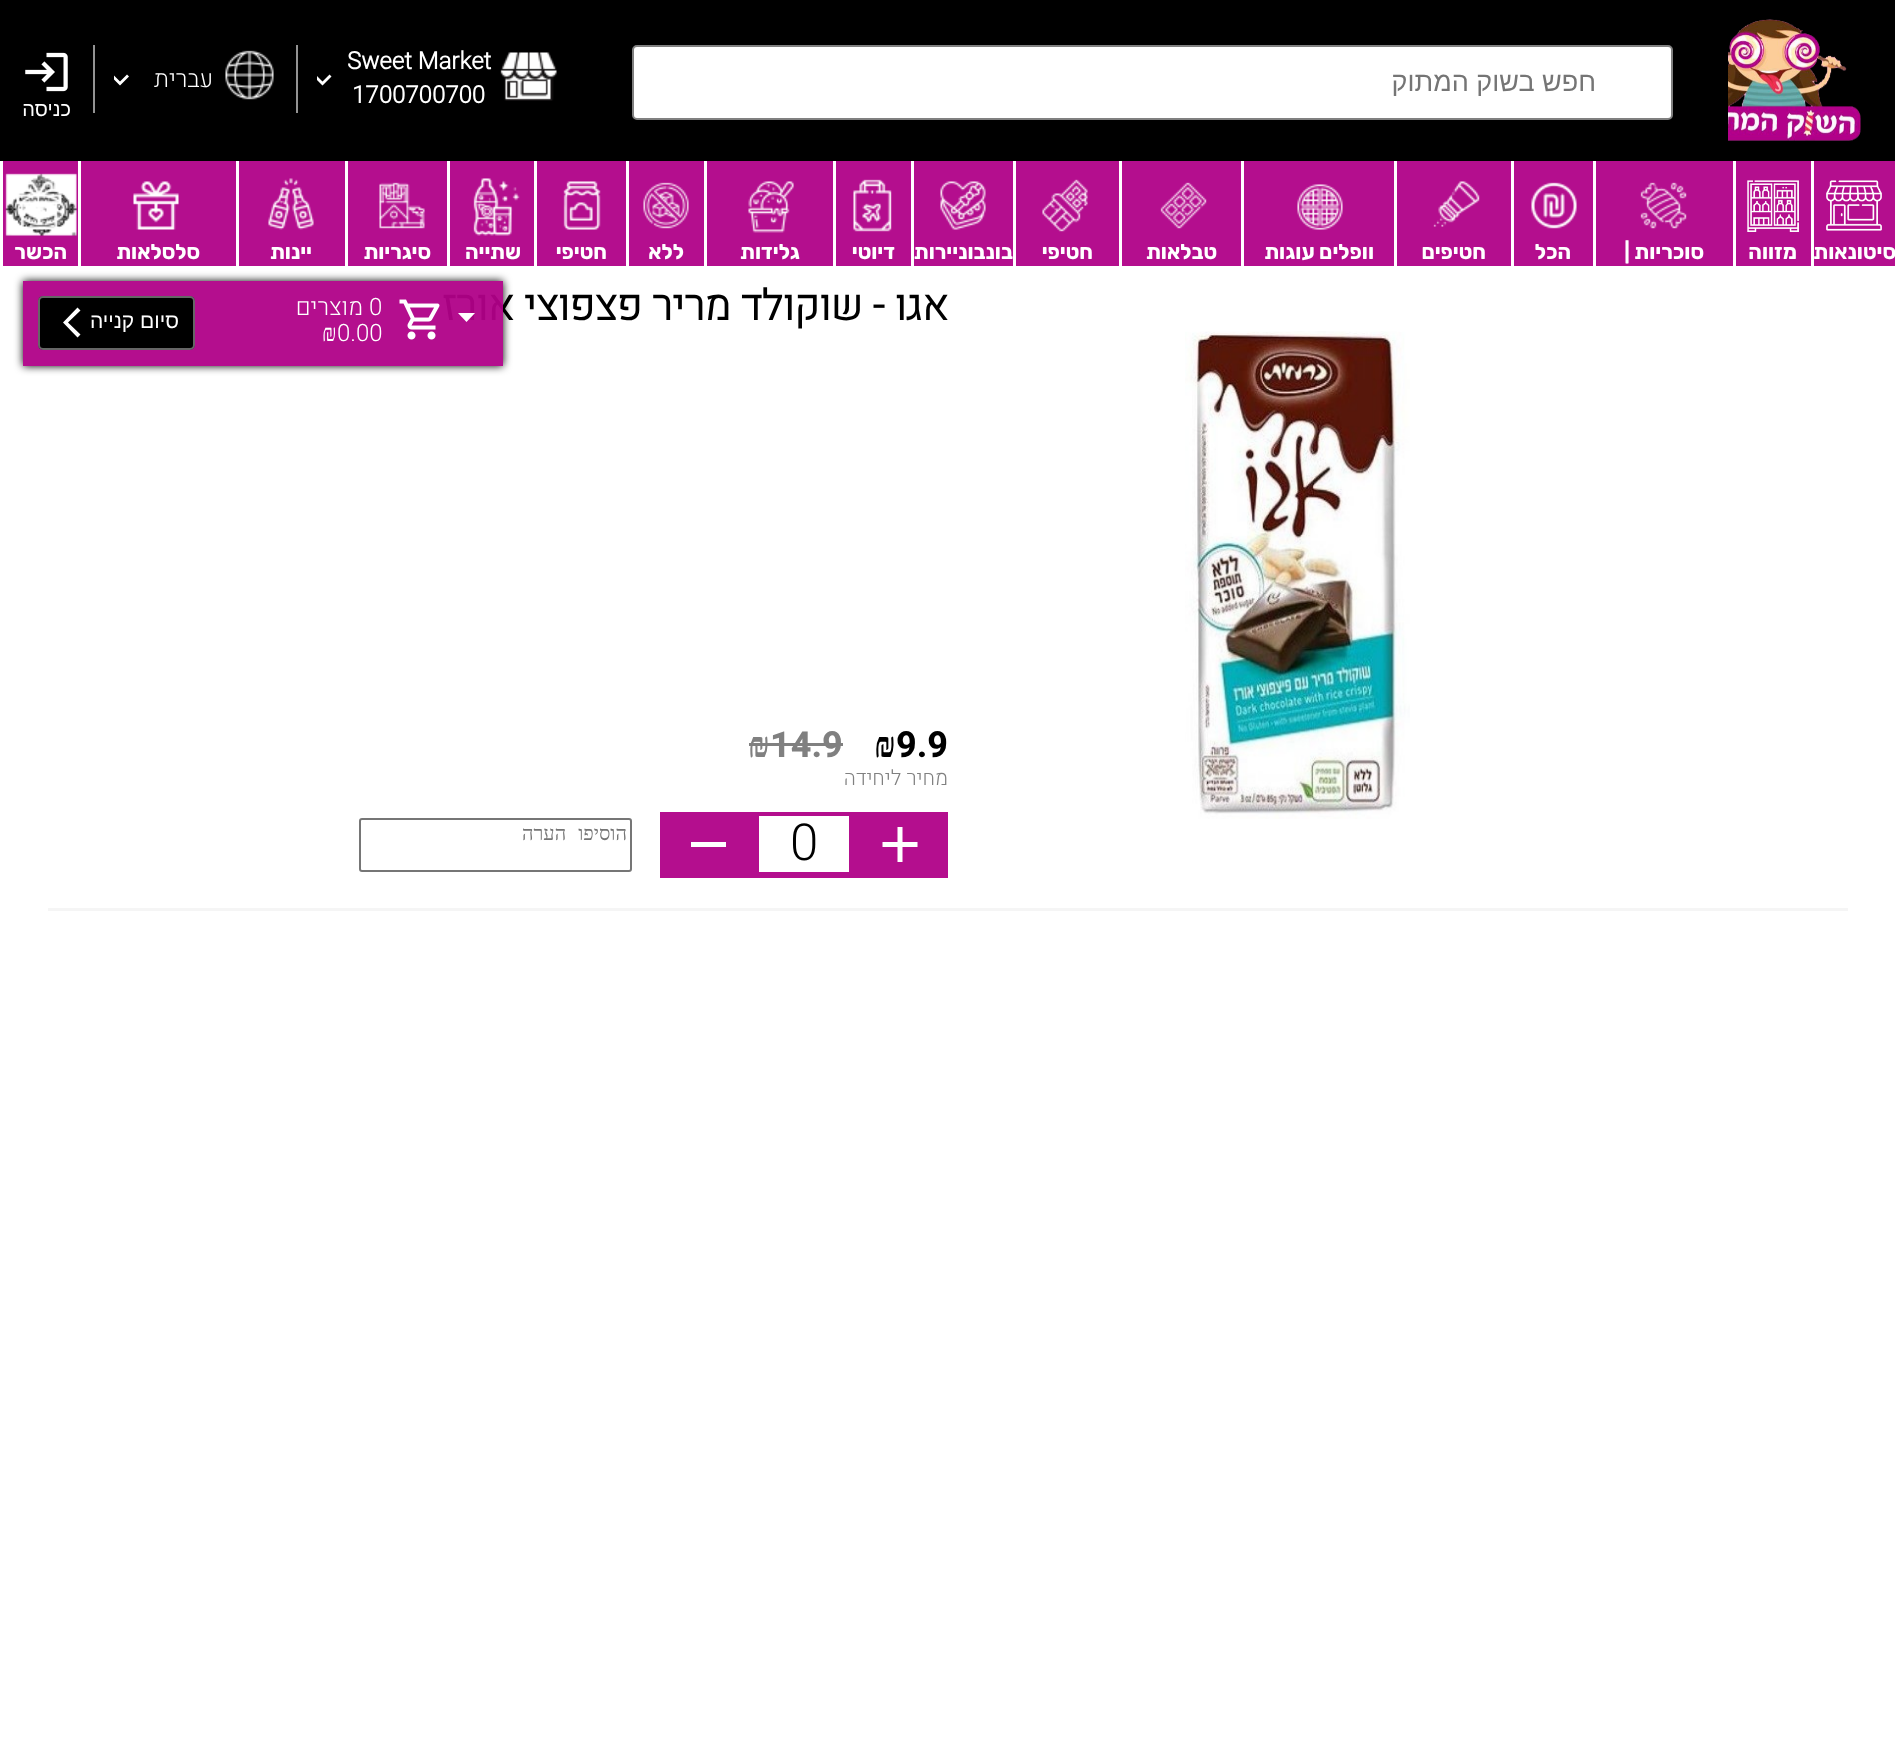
<svg xmlns="http://www.w3.org/2000/svg" width="1895" height="1745" viewBox="0 0 1895 1745">
  <style>
    .t1 { font: 27px Liberation Sans; direction: rtl; fill: #757575; }
    .t2 { font: bold 24px Heebo; fill: #fff; }
    .t3 { font: 300 24px Heebo; direction: rtl; fill: #fff; }
    .t4 { font: 20px Liberation Sans; direction: rtl; fill: #fff; }
    .t5 { font: bold 21px Rubik; direction: rtl; fill: #fff; }
    .t6 { font: bold 42px Heebo; direction: rtl; fill: #000; }
    .t7 { font: bold 36px 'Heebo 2'; fill: #000; }
    .t8 { font: bold 36px Liberation Serif; fill: #000; }
    .t9 { font: bold 36px 'Heebo 2'; fill: #808080; }
    .t10 { font: bold 36px Liberation Serif; fill: #808080; }
    .t11 { font: 300 21px Heebo; direction: rtl; fill: #808080; }
    .t12 { font: 300 51px Heebo; fill: #000; }
    .t13 { font: 20px Liberation Serif; direction: rtl; fill: #757575; }
    .t14 { font: 300 24px Heebo; fill: #fff; }
    .t15 { font: 24px Liberation Serif; fill: #fff; }
    .t16 { font: 21px Liberation Sans; direction: rtl; fill: #fff; }
  </style>
  <defs>
    <clipPath id="clip1"><rect x="317" y="62" width="24" height="36"/></clipPath>
    <clipPath id="clip2"><rect x="114" y="62" width="24" height="36"/></clipPath>
    <clipPath id="clip3"><path d="M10 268H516V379H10ZM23 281H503V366H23Z" clip-rule="evenodd"/></clipPath>
  </defs>
  <rect width="100%" height="100%" fill="#fff"/>
  <rect x="0" y="0" width="1895" height="161" fill="#000"/>
  <image x="1728" y="19" width="133" height="122" href="images/1.png"/>
  <rect x="633" y="46" width="1039" height="73" rx="4" fill="#fff" stroke="#808080" stroke-width="2"/>
  <text x="1596" y="91" class="t1">חפש בשוק המתוק</text>
  <image x="500" y="52" width="57" height="49" href="images/2.png"/>
  <text x="347" y="69" class="t2">Sweet Market</text>
  <text x="352" y="103" class="t2">1700700700</text>
  <g clip-path="url(#clip1)">
    <path d="M315.5 74.5L322.5 81.5L329.5 74.5L331.5 76.5L322.5 85.5L313.5 76.5Z" fill="#fff"/>
  </g>
  <rect x="296" y="45" width="2" height="68" fill="#939393"/>
  <rect x="93" y="45" width="2" height="68" fill="#939393"/>
  <image x="225" y="50" width="49" height="50" href="images/3.png"/>
  <text x="213" y="87" class="t3">עברית</text>
  <g clip-path="url(#clip2)">
    <path d="M113 74.5L120 81.5L127 74.5L129 76.5L120 85.5L111 76.5Z" fill="#fff"/>
  </g>
  <image x="25" y="52" width="43" height="40" href="images/4.png"/>
  <text x="71" y="116" class="t4">כניסה</text>
  <rect x="1814" y="161" width="81" height="105" fill="#b40e8e"/>
  <image x="1826" y="180" width="56" height="51" href="images/5.png"/>
  <text x="1896" y="259" class="t5">סיטונאות</text>
  <rect x="1736" y="161" width="75" height="105" fill="#b40e8e"/>
  <image x="1747" y="180" width="52" height="52" href="images/6.png"/>
  <text x="1797" y="259" class="t5">מזווה</text>
  <rect x="1596" y="161" width="137" height="105" fill="#b40e8e"/>
  <image x="1640" y="182" width="47" height="47" href="images/7.png"/>
  <text x="1704" y="259" class="t5">סוכריות |</text>
  <rect x="1514" y="161" width="79" height="105" fill="#b40e8e"/>
  <image x="1531" y="182" width="46" height="47" href="images/8.png"/>
  <text x="1571" y="259" class="t5">הכל</text>
  <rect x="1397" y="161" width="114" height="105" fill="#b40e8e"/>
  <image x="1433" y="181" width="47" height="46" href="images/9.png"/>
  <text x="1486" y="259" class="t5">חטיפים</text>
  <rect x="1244" y="161" width="150" height="105" fill="#b40e8e"/>
  <image x="1297" y="184" width="46" height="46" href="images/10.png"/>
  <text x="1374" y="259" class="t5">וופלים עוגות</text>
  <rect x="1122" y="161" width="119" height="105" fill="#b40e8e"/>
  <image x="1160" y="182" width="47" height="47" href="images/11.png"/>
  <text x="1217" y="259" class="t5">טבלאות</text>
  <rect x="1016" y="161" width="103" height="105" fill="#b40e8e"/>
  <image x="1042" y="179" width="46" height="53" href="images/12.png"/>
  <text x="1093" y="259" class="t5">חטיפי</text>
  <rect x="914" y="161" width="99" height="105" fill="#b40e8e"/>
  <image x="940" y="181" width="46" height="49" href="images/13.png"/>
  <text x="1013" y="259" class="t5">בונבוניירות</text>
  <rect x="836" y="161" width="75" height="105" fill="#b40e8e"/>
  <image x="853" y="179" width="39" height="53" href="images/14.png"/>
  <text x="895" y="259" class="t5">דיוטי</text>
  <rect x="707" y="161" width="126" height="105" fill="#b40e8e"/>
  <image x="748" y="181" width="46" height="52" href="images/15.png"/>
  <text x="800" y="259" class="t5">גלידות</text>
  <rect x="629" y="161" width="75" height="105" fill="#b40e8e"/>
  <image x="643" y="182" width="46" height="47" href="images/16.png"/>
  <text x="684" y="259" class="t5">ללא</text>
  <rect x="537" y="161" width="89" height="105" fill="#b40e8e"/>
  <image x="563" y="181" width="38" height="49" href="images/17.png"/>
  <text x="607" y="259" class="t5">חטיפי</text>
  <rect x="450" y="161" width="84" height="105" fill="#b40e8e"/>
  <image x="473" y="178" width="47" height="58" href="images/18.png"/>
  <text x="521" y="259" class="t5">שתייה</text>
  <rect x="348" y="161" width="99" height="105" fill="#b40e8e"/>
  <image x="379" y="182" width="46" height="47" href="images/19.png"/>
  <text x="431" y="259" class="t5">סיגריות</text>
  <rect x="239" y="161" width="106" height="105" fill="#b40e8e"/>
  <image x="268" y="178" width="46" height="52" href="images/20.png"/>
  <text x="312" y="259" class="t5">יינות</text>
  <rect x="81" y="161" width="155" height="105" fill="#b40e8e"/>
  <image x="133" y="181" width="46" height="49" href="images/21.png"/>
  <text x="200" y="259" class="t5">סלסלאות</text>
  <rect x="3" y="161" width="75" height="105" fill="#b40e8e"/>
  <image x="5" y="173" width="72" height="63" href="images/22.png"/>
  <text x="67" y="259" class="t5">הכשר</text>
  <rect x="48" y="908" width="1800" height="3" fill="#f5f5f5"/>
  <image x="1185" y="331" width="225" height="488" href="images/23.png"/>
  <text x="948" y="320" class="t6">אגו - שוקולד מריר פצפוצי אורז</text>
  <text x="896" y="757" class="t7">9.9</text>
  <text x="874" y="757" class="t8">₪</text>
  <text x="770" y="757" class="t9">14.9</text>
  <rect x="749" y="743" width="94" height="3" fill="#808080"/>
  <text x="748" y="757" class="t10">₪</text>
  <text x="948" y="785" class="t11">מחיר ליחידה</text>
  <rect x="660" y="812" width="288" height="66" fill="#b40e8e"/>
  <path d="M917.5 847H902.5V862H897.5V847H882.5V842H897.5V827H902.5V842H917.5Z" fill="#fff"/>
  <rect x="759" y="816" width="90" height="56" fill="#fff"/>
  <text x="790" y="860" class="t12">0</text>
  <rect x="691" y="842" width="35" height="5" fill="#fff"/>
  <rect x="360" y="819" width="271" height="52" rx="2" fill="none" stroke="#767676" stroke-width="2"/>
  <text x="627" y="840" word-spacing="7" class="t13">הוסיפו הערה</text>
  <g clip-path="url(#clip3)">
    <rect x="23" y="281" width="480" height="85" fill="#000" filter="blur(4px)"/>
  </g>
  <rect x="23" y="281" width="480" height="85" fill="#b00188f2"/>
  <path d="M458 313L466.5 322L475 313Z" fill="#fff"/>
  <image x="399" y="299" width="41" height="41" href="images/24.png"/>
  <text x="369" y="315" class="t14">0</text>
  <text x="363" y="315" class="t3">מוצרים</text>
  <text x="337" y="341" class="t14">0.00</text>
  <text x="322" y="341" class="t15">₪</text>
  <rect x="38" y="296" width="157" height="54" rx="5" fill="#000"/>
  <rect x="39" y="297" width="155" height="52" rx="4" fill="none" stroke="#ffffff66" stroke-width="2"/>
  <text x="179" y="328" class="t16">סיום קנייה</text>
  <path d="M80.5 310.5L77.5 307.5L63 322.5L77.5 337.5L80.5 334.5L68 322.5Z" fill="#fff"/>
</svg>
